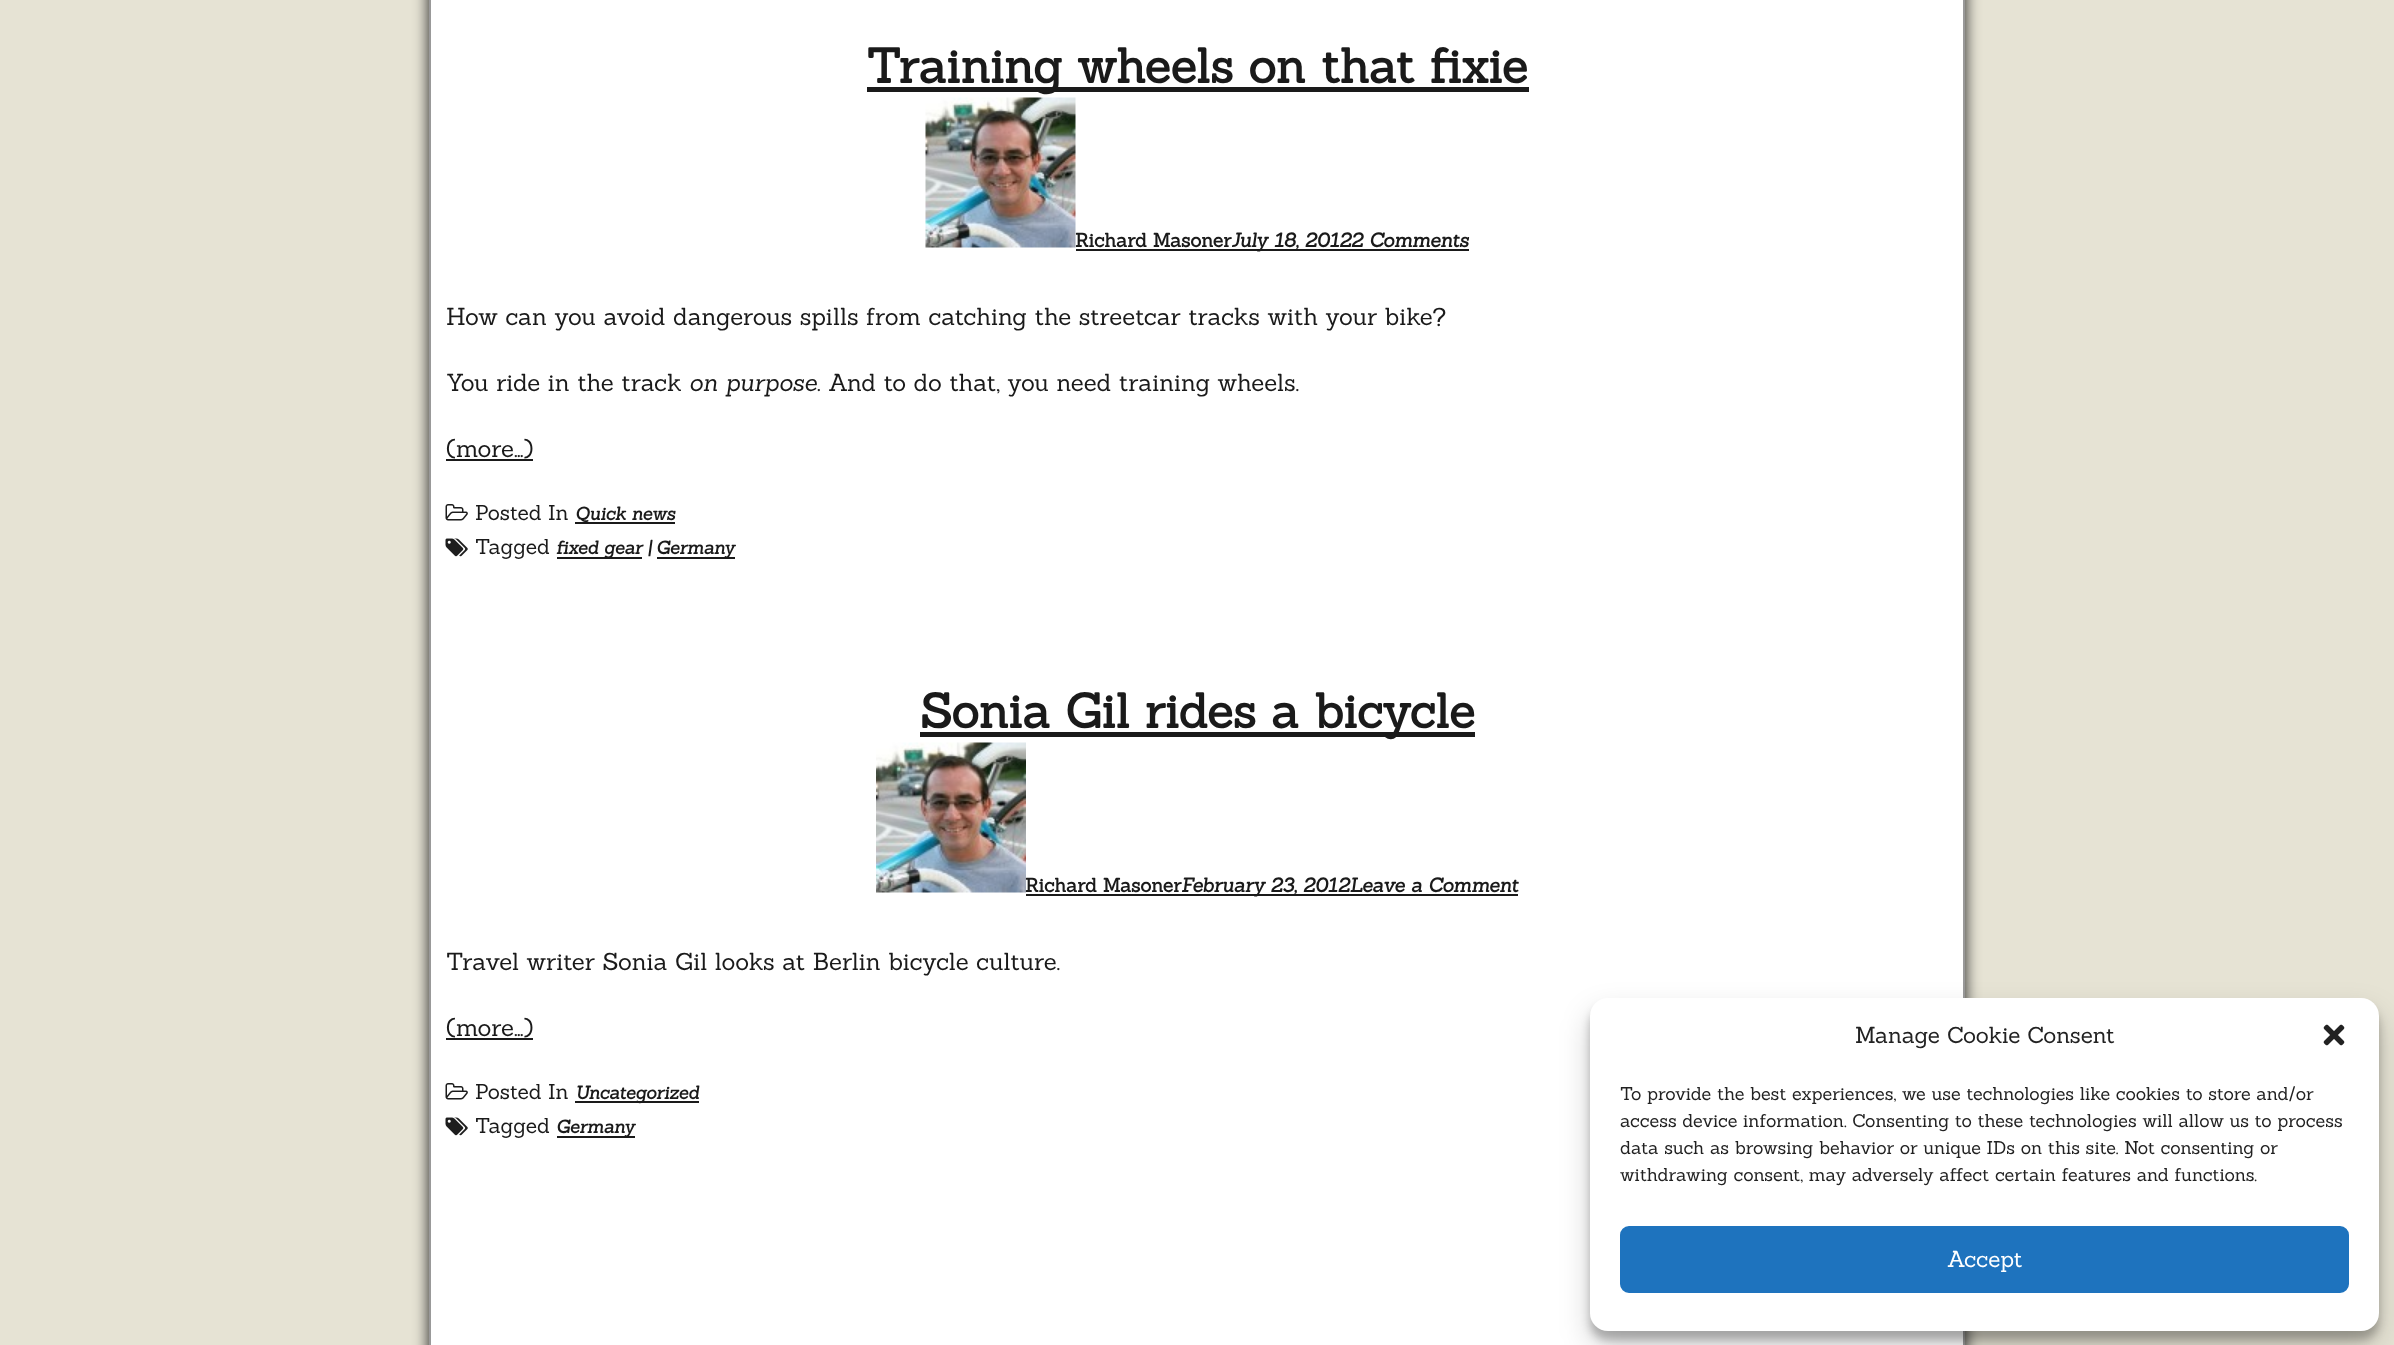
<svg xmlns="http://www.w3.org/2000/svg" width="2394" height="1345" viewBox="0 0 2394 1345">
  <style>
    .t1 { font: bold 48px Sanchez; fill: #1a1a1a; }
    .t2 { font: bold 19.25px Sanchez; fill: #1a1a1a; }
    .t3 { font: italic bold 19.5px Sanchez; fill: #1a1a1a; }
    .t4 { font: 24px Sanchez; fill: #1a1a1a; }
    .t5 { font: italic 24px Sanchez; fill: #1a1a1a; }
    .t6 { font: 21px Sanchez; fill: #1a1a1a; }
    .t7 { font: italic bold 18px Sanchez; fill: #1a1a1a; }
    .t8 { font: 22.5px Sanchez; fill: #222; }
    .t9 { font: 18px Sanchez; fill: #222; }
    .t10 { font: 22.5px Sanchez; fill: #fff; }
  </style>
  <rect width="100%" height="100%" fill="#e6e3d4"/>
  <rect x="429" y="-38" width="1536" height="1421" rx="15" fill="#1d1d1d" filter="blur(7.5px)"/>
  <rect x="430" y="-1" width="1534" height="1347" fill="#fff" stroke="#999" stroke-width="2"/>
  <rect x="867" y="87" width="662" height="5" fill="#1a1a1a"/>
  <text x="866" y="83" class="t1">Training wheels on that fixie</text>
  <image x="925" y="97" width="151" height="151" href="images/1.png"/>
  <text x="1075" y="247" class="t2">Richard Masoner</text>
  <rect x="1076" y="249" width="393" height="2" fill="#1a1a1a"/>
  <text x="1231" y="247" class="t3">July 18, 20122 Comments</text>
  <text x="446" y="325" class="t4">How can you avoid dangerous spills from catching the streetcar tracks with your bike?</text>
  <text x="446" y="391" class="t4">You ride in the track</text>
  <text x="689" y="391" class="t5">on purpose</text>
  <text x="817" y="391" class="t4">. And to do that, you need training wheels.</text>
  <text x="446" y="457" class="t4">(more…)</text>
  <rect x="446" y="459" width="87" height="2" fill="#1a1a1a"/>
  <image x="445" y="504" width="23" height="17" href="images/2.png"/>
  <text x="475" y="520" class="t6">Posted In</text>
  <text x="575" y="520" class="t7">Quick news</text>
  <rect x="575" y="522" width="100" height="2" fill="#1a1a1a"/>
  <image x="445" y="538" width="23" height="19" href="images/3.png"/>
  <text x="475" y="554" class="t6">Tagged</text>
  <rect x="557" y="557" width="85" height="2" fill="#1a1a1a"/>
  <text x="556" y="554" class="t7">fixed gear</text>
  <text x="648" y="554" class="t7">|</text>
  <rect x="657" y="557" width="78" height="2" fill="#1a1a1a"/>
  <text x="656" y="554" class="t7">Germany</text>
  <rect x="920" y="732" width="555" height="5" fill="#1a1a1a"/>
  <text x="920" y="728" class="t1">Sonia Gil rides a bicycle</text>
  <image x="876" y="742" width="150" height="151" href="images/4.png"/>
  <text x="1025" y="892" class="t2">Richard Masoner</text>
  <rect x="1026" y="894" width="324" height="2" fill="#1a1a1a"/>
  <text x="1181" y="892" class="t3">February 23, 2012Leave a Comment</text>
  <rect x="1350" y="894" width="168" height="2" fill="#1a1a1a"/>
  <text x="446" y="970" class="t4">Travel writer Sonia Gil looks at Berlin bicycle culture.</text>
  <text x="446" y="1036" class="t4">(more…)</text>
  <rect x="446" y="1038" width="87" height="2" fill="#1a1a1a"/>
  <image x="445" y="1083" width="23" height="17" href="images/2.png"/>
  <text x="475" y="1099" class="t6">Posted In</text>
  <rect x="575" y="1101" width="124" height="2" fill="#1a1a1a"/>
  <text x="575" y="1099" class="t7">Uncategorized</text>
  <image x="445" y="1117" width="23" height="19" href="images/3.png"/>
  <text x="475" y="1133" class="t6">Tagged</text>
  <rect x="557" y="1136" width="78" height="2" fill="#1a1a1a"/>
  <text x="556" y="1133" class="t7">Germany</text>
  <rect x="1590" y="1007" width="789" height="333" rx="18" fill="#0000003b" filter="blur(4.5px)"/>
  <rect x="1590" y="1013" width="789" height="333" rx="18" fill="#00000030" filter="blur(15px)"/>
  <rect x="1590" y="998" width="789" height="333" rx="18" fill="#fff"/>
  <text x="1855" y="1043" class="t8">Manage Cookie Consent</text>
  <image x="2323" y="1024" width="22" height="22" href="images/5.png"/>
  <text x="1620" y="1100" class="t9">To provide the best experiences, we use technologies like cookies to store and/or</text>
  <text x="1620" y="1127" class="t9">access device information. Consenting to these technologies will allow us to process</text>
  <text x="1620" y="1154" class="t9">data such as browsing behavior or unique IDs on this site. Not consenting or</text>
  <text x="1620" y="1181" class="t9">withdrawing consent, may adversely affect certain features and functions.</text>
  <rect x="1621" y="1227" width="727" height="65" rx="8" fill="#1e73be" stroke="#1e73be" stroke-width="2"/>
  <text x="1947" y="1267" class="t10">Accept</text>
</svg>
